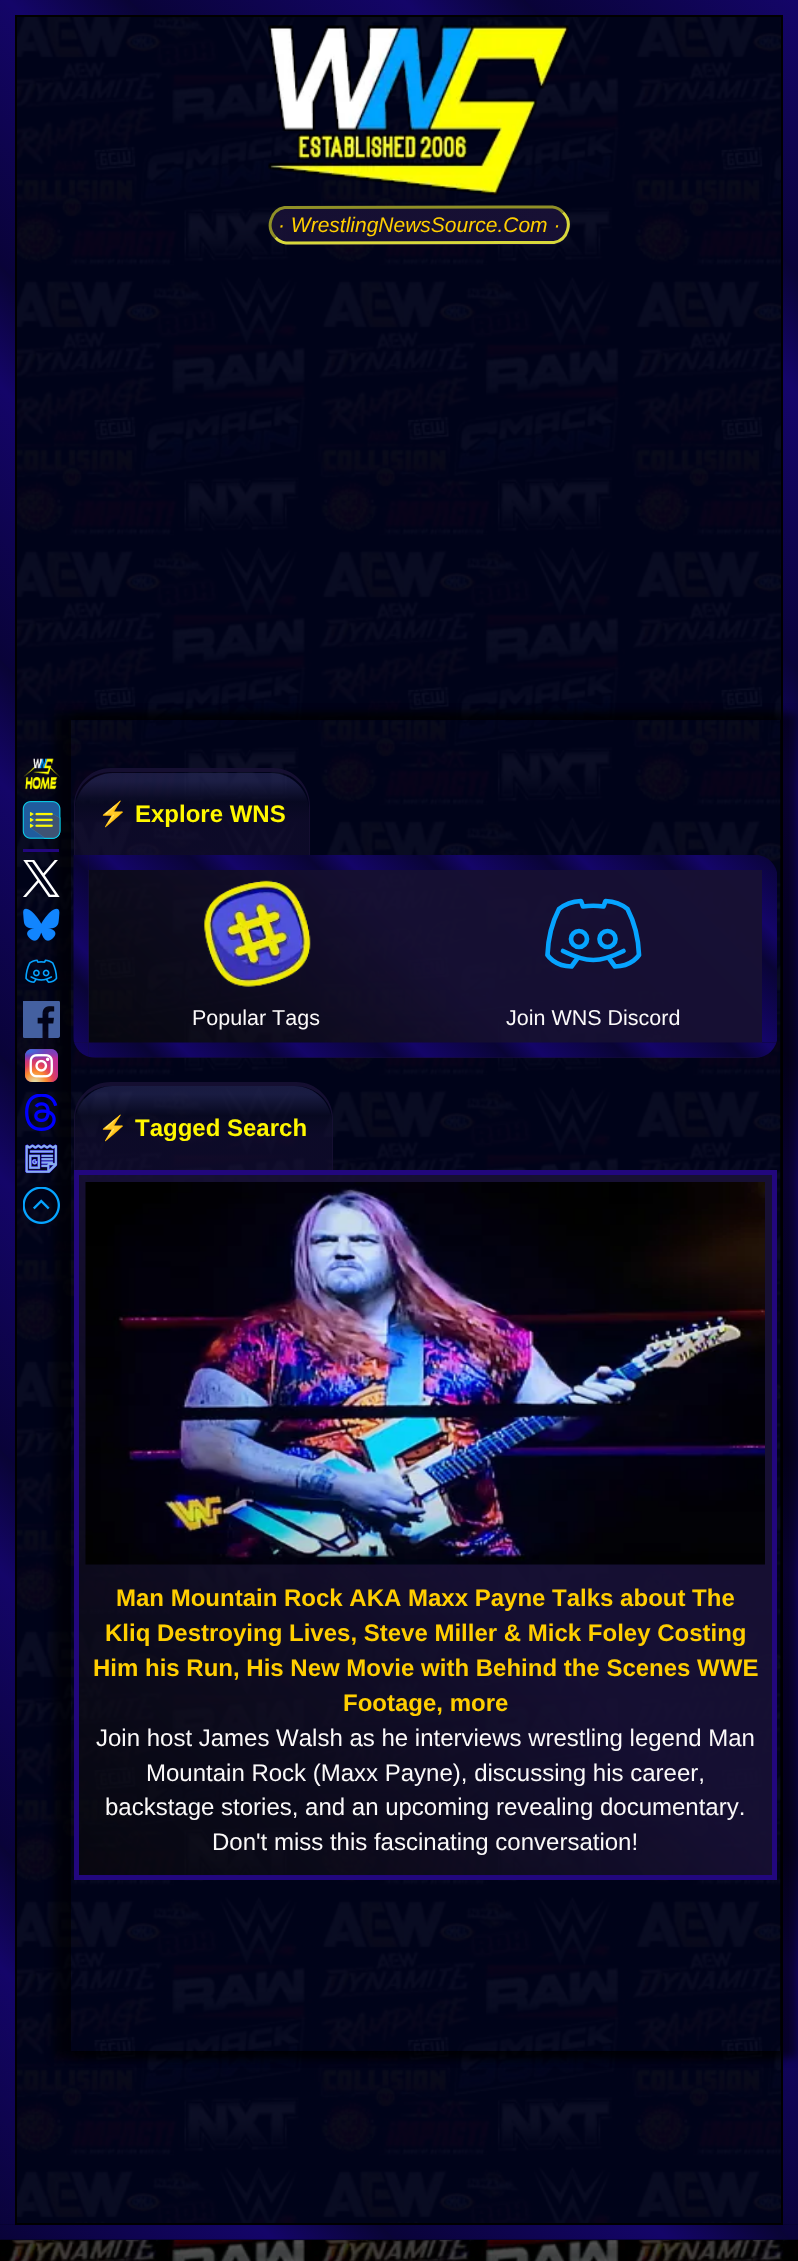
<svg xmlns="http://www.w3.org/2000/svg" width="798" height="2261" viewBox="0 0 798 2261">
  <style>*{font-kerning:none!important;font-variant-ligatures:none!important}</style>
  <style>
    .t1 { font: italic 21px Liberation Sans; fill: #ffce00; }
    .t2 { font: bold 24px Noto Color Emoji; fill: #fff700; }
    .t3 { font: bold 24px Liberation Sans; fill: #fff700; }
    .t4 { font: 21.5px Liberation Sans; fill: #fbf9f9; }
    .t5 { font: bold 24px Liberation Sans; fill: #ffce00; }
    .t6 { font: 24px Liberation Sans; fill: #fbf9f9; }
  </style>
  <defs>
    <clipPath id="clip1"><rect x="269" y="206" width="301" height="39" rx="19.5"/></clipPath>
    <linearGradient id="g1" gradientUnits="userSpaceOnUse" x1="337" y1="274" x2="501" y2="110"><stop offset="0" stop-color="#171034" stop-opacity="0.91"/><stop offset="1" stop-color="#171034"/></linearGradient>
    <linearGradient id="g2" gradientUnits="userSpaceOnUse" x1="337" y1="307" x2="501" y2="143"><stop offset="0" stop-color="#171034" stop-opacity="0.91"/><stop offset="1" stop-color="#171034"/></linearGradient>
    <linearGradient id="g3" gradientUnits="userSpaceOnUse" x1="633" y1="307" x2="797" y2="143"><stop offset="0" stop-color="#171034" stop-opacity="0.91"/><stop offset="1" stop-color="#171034"/></linearGradient>
    <linearGradient id="g4" gradientUnits="userSpaceOnUse" x1="337" y1="340" x2="501" y2="176"><stop offset="0" stop-color="#171034" stop-opacity="0.91"/><stop offset="1" stop-color="#171034"/></linearGradient>
    <clipPath id="clip2"><path d="M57 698H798V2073H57ZM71 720H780V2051H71Z" clip-rule="evenodd"/></clipPath>
    <clipPath id="clip3"><path d="M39 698H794V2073H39ZM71 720H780V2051H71Z" clip-rule="evenodd"/></clipPath>
    <linearGradient id="g5" gradientUnits="userSpaceOnUse" x1="192" y1="773" x2="192" y2="855"><stop offset="0.1" stop-color="#2a2c5d" stop-opacity="0.6"/><stop offset="0.35" stop-color="#0c0c25" stop-opacity="0.6"/><stop offset="0.6" stop-color="#171034" stop-opacity="0.55"/></linearGradient>
    <linearGradient id="g6" gradientUnits="userSpaceOnUse" x1="203" y1="1086" x2="203" y2="1170"><stop offset="0.1" stop-color="#2a2c5d" stop-opacity="0.6"/><stop offset="0.35" stop-color="#0c0c25" stop-opacity="0.6"/><stop offset="0.6" stop-color="#171034" stop-opacity="0.55"/></linearGradient>
  </defs>
  <rect width="100%" height="100%" fill="#fff"/>
  <image x="0" y="17" width="798" height="2244" href="images/1.png"/>
  <image x="0" y="0" width="798" height="2240" href="images/2.png"/>
  <image x="268" y="25" width="301" height="170" href="images/3.png"/>
  <g clip-path="url(#clip1)">
    <rect x="272" y="206" width="295" height="3" fill="url(#g1)"/>
    <rect x="272" y="209" width="295" height="33" fill="url(#g2)"/>
    <rect x="567" y="209" width="3" height="33" fill="url(#g3)"/>
    <rect x="272" y="242" width="295" height="3" fill="url(#g4)"/>
  </g>
  <path d="M563 212.5C573 222 568 240 554 242.5L286 243C282 242.5 278 240.5 275.5 237.5" fill="none" stroke="#d8d83b" stroke-width="3"/>
  <path d="M275.5 237.5C265.5 228 270.5 210 284.5 207.5L552.5 207C556.5 207.5 560.5 209.5 563 212.5" fill="none" stroke="#909027" stroke-width="3"/>
  <g clip-path="url(#clip2)">
    <rect x="72" y="713" width="725" height="1345" fill="#0000008c" filter="blur(4.5px)"/>
  </g>
  <g clip-path="url(#clip3)">
    <rect x="54" y="713" width="725" height="1345" fill="#0000008c" filter="blur(4.5px)"/>
  </g>
  <rect x="16" y="16" width="766" height="2208" fill="none" stroke="#000" stroke-width="2"/>
  <text x="278" y="232" class="t1">· WrestlingNewsSource.Com ·</text>
  <image x="23" y="758" width="37" height="32" href="images/4.png"/>
  <image x="22" y="801" width="39" height="38" href="images/5.png"/>
  <rect x="23" y="849" width="36" height="3" fill="#22077e"/>
  <image x="23" y="860" width="37" height="37" href="images/6.png"/>
  <image x="23" y="908" width="37" height="33" href="images/7.png"/>
  <image x="25" y="959" width="33" height="24" href="images/8.png"/>
  <image x="23" y="1001" width="37" height="37" href="images/9.png"/>
  <image x="25" y="1049" width="33" height="33" href="images/10.png"/>
  <image x="25" y="1094" width="33" height="37" href="images/11.png"/>
  <image x="25" y="1144" width="33" height="30" href="images/12.png"/>
  <image x="23" y="1187" width="37" height="37" href="images/13.png"/>
  <path d="M111 768H273C294 768 310 785 310 806V855H74V806C74 785 90 768 111 768ZM111 772H273C293 772 309 787 309 806V855H75V806C75 787 91 772 111 772Z" fill="#171034e8" fill-rule="evenodd"/>
  <path d="M113 773H271C292 773 309 790 309 811V855H75V811C75 790 92 773 113 773Z" fill="url(#g5)"/>
  <text x="98" y="822" class="t2">⚡</text>
  <text x="135" y="822" class="t3">Explore WNS</text>
  <image x="73" y="855" width="704" height="203" href="images/14.png"/>
  <image x="204" y="880" width="107" height="107" href="images/15.png"/>
  <text x="192" y="1025" class="t4">Popular Tags</text>
  <path d="M578 957.5L571.5 966.5C554 966 547.5 955 547.5 955C548 939 551.5 923.5 559 909C565 904 573 901.5 581 901L583 906.5C590 905.5 596.5 905.5 603.5 906.5L605.5 901C613.5 901.5 621.5 904 627.5 909C635 923.5 638.5 939 639 955C639 955 632.5 966 615 966.5L608.5 957.5M623.5 951C599.5 963 587 963 563 951" fill="none" stroke="#06a4ff" stroke-width="4.7" stroke-linecap="round" stroke-linejoin="round"/>
  <circle cx="579" cy="939" r="8" fill="none" stroke="#06a4ff" stroke-width="4.7"/>
  <circle cx="607.5" cy="939" r="8" fill="none" stroke="#06a4ff" stroke-width="4.7"/>
  <text x="506" y="1025" class="t4">Join WNS Discord</text>
  <path d="M111 1082H296C316 1082 333 1098 333 1119V1170H74V1119C74 1098 90 1082 111 1082ZM111 1086H296C315 1086 332 1101 332 1119V1170H75V1119C75 1101 91 1086 111 1086Z" fill="#171034e8" fill-rule="evenodd"/>
  <path d="M113 1086H294C315 1086 332 1103 332 1124V1170H75V1124C75 1103 92 1086 113 1086Z" fill="url(#g6)"/>
  <text x="98" y="1136" class="t2">⚡</text>
  <text x="135" y="1136" class="t3">Tagged Search</text>
  <rect x="76.5" y="1172.5" width="698" height="705" fill="none" stroke="#22077e" stroke-width="5"/>
  <image x="85" y="1182" width="680" height="383" href="images/16.png"/>
  <text x="116" y="1606" class="t5">Man Mountain Rock AKA Maxx Payne Talks about The</text>
  <text x="105" y="1641" class="t5">Kliq Destroying Lives, Steve Miller &amp; Mick Foley Costing</text>
  <text x="93" y="1676" class="t5">Him his Run, His New Movie with Behind the Scenes WWE</text>
  <text x="343" y="1711" class="t5">Footage, more</text>
  <text x="96" y="1746" class="t6">Join host James Walsh as he interviews wrestling legend Man</text>
  <text x="146" y="1781" class="t6">Mountain Rock (Maxx Payne), discussing his career,</text>
  <text x="105" y="1815" class="t6">backstage stories, and an upcoming revealing documentary.</text>
  <text x="212" y="1850" class="t6">Don't miss this fascinating conversation!</text>
</svg>
